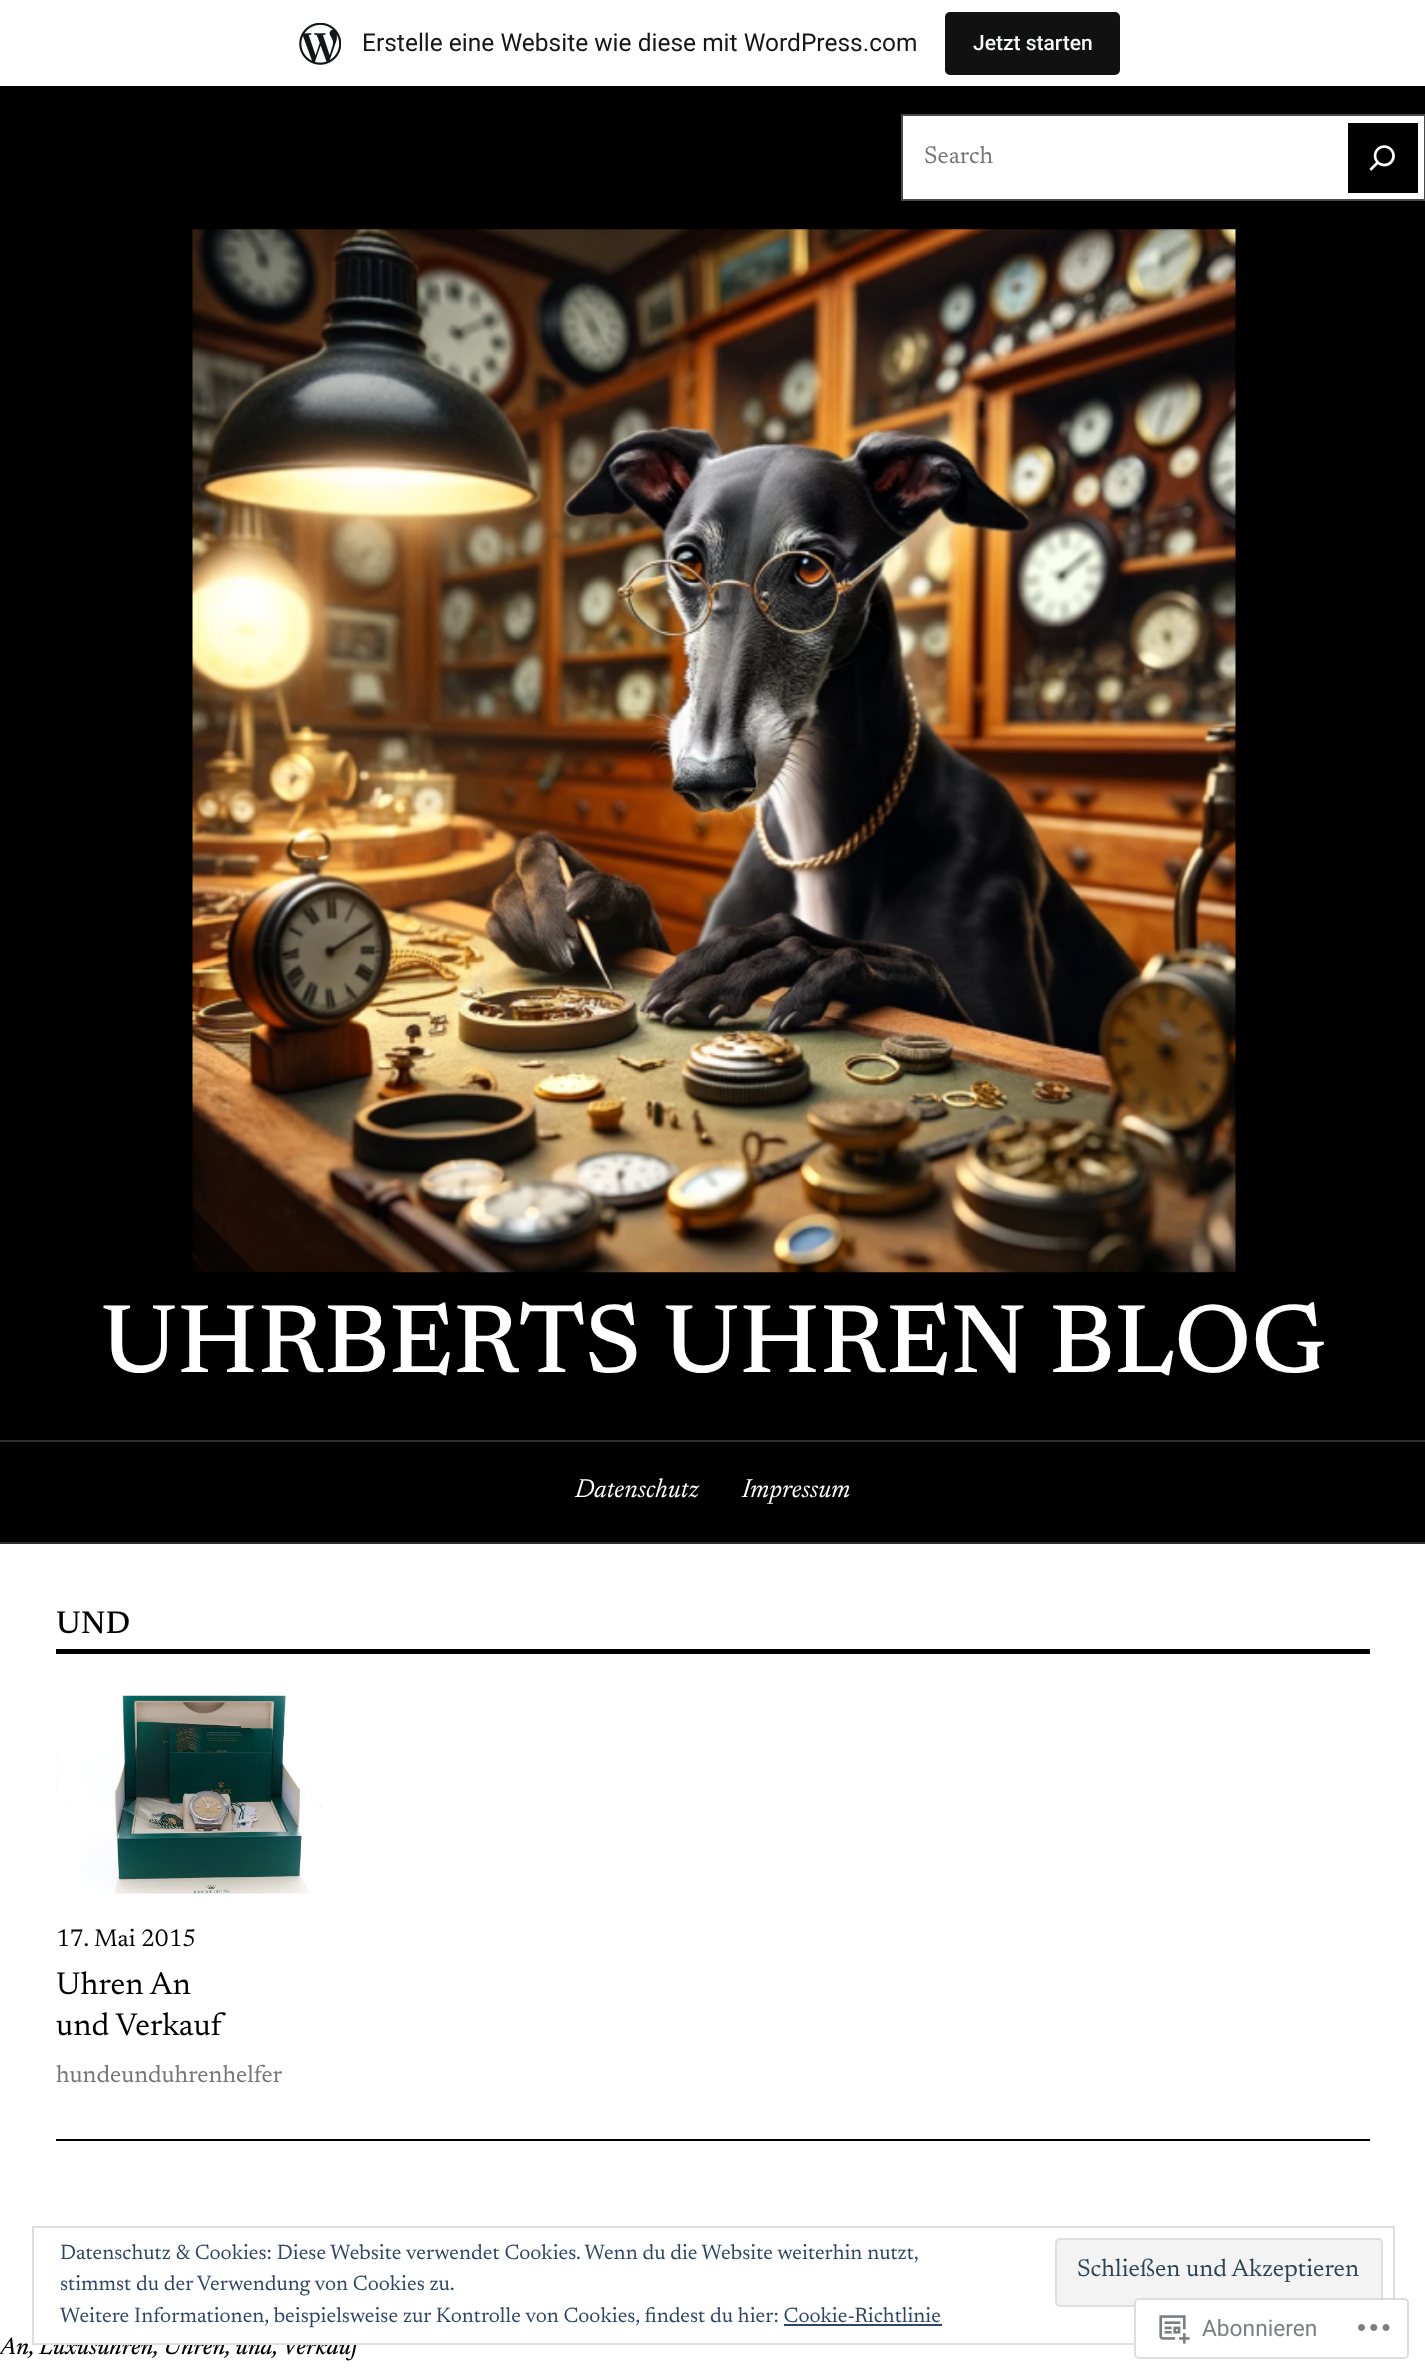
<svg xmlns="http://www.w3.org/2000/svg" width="1425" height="2375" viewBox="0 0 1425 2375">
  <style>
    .t1 { font: 24.5px Roboto; fill: #171717; }
    .t2 { font: 500 21px Roboto; fill: #f6f7f7; }
    .t3 { font: 24.25px Newsreader; fill: #757575; }
    .t4 { font: 500 98.5px Newsreader; fill: #fff; }
    .t5 { font: italic 26.5px Newsreader; fill: #fff; }
    .t6 { font: 500 32px Newsreader; fill: #000; }
    .t7 { font: 24.25px Newsreader; fill: #000; }
    .t8 { font: 32px Newsreader; fill: #000; }
    .t9 { font: italic 500 24.25px Newsreader; fill: #000; }
    .t10 { font: 21px Newsreader; fill: #2e4467; }
    .t11 { font: 24.5px Newsreader; fill: #2e4453; }
    .t12 { font: 22.75px Roboto; fill: #7b7f85; }
  </style>
  <rect width="100%" height="100%" fill="#fff"/>
  <rect x="0" y="86" width="1425" height="1456" fill="#000"/>
  <rect x="0" y="2" width="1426" height="86" fill="#0000000d" filter="blur(2px)"/>
  <rect x="0" y="0" width="1425" height="86" fill="#fff"/>
  <image x="299" y="23" width="42" height="42" href="images/1.png"/>
  <text x="362" y="51" class="t1">Erstelle eine Website wie diese mit WordPress.com</text>
  <rect x="945" y="12" width="175" height="63" rx="5" fill="#111"/>
  <text x="973" y="50" class="t2">Jetzt starten</text>
  <rect x="902" y="115" width="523" height="85" fill="#fff" stroke="#4a4a4a" stroke-width="2"/>
  <text x="924" y="163" class="t3">Search</text>
  <rect x="1348" y="123" width="70" height="70" fill="#000"/>
  <image x="1369" y="145" width="26" height="26" href="images/2.png"/>
  <image x="192" y="229" width="1044" height="1044" href="images/3.png"/>
  <text x="101" y="1372" class="t4">UHRBERTS UHREN BLOG</text>
  <rect x="0" y="1440" width="1425" height="2" fill="#2e2e2e"/>
  <rect x="0" y="1542" width="1425" height="2" fill="#2e2e2e"/>
  <text x="575" y="1497" class="t5">Datenschutz</text>
  <text x="742" y="1497" class="t5">Impressum</text>
  <rect x="56" y="1649" width="1314" height="5" fill="#000"/>
  <text x="56" y="1633" class="t6">UND</text>
  <image x="56" y="1695" width="267" height="199" href="images/4.png"/>
  <text x="56" y="1946" class="t7">17. Mai 2015</text>
  <text x="56" y="1994" class="t8">Uhren An</text>
  <text x="56" y="2035" class="t8">und Verkauf</text>
  <text x="56" y="2082" class="t3">hundeunduhrenhelfer</text>
  <rect x="56" y="2139" width="1314" height="2" fill="#000"/>
  <text x="0" y="2354" class="t9">An, Luxusuhren, Uhren, und,</text>
  <text x="282" y="2354" class="t9">Verkauf</text>
  <rect x="43" y="2336" width="322" height="7" fill="#fff"/>
  <rect x="33" y="2227" width="1361" height="117" fill="none" stroke="#dedede" stroke-width="2"/>
  <text x="60" y="2259" class="t10">Datenschutz &amp; Cookies: Diese Website verwendet Cookies. Wenn du die Website weiterhin nutzt,</text>
  <rect x="1056" y="2239" width="326" height="67" rx="4" fill="#f3f3f3" stroke="#dedede" stroke-width="2"/>
  <text x="1077" y="2276" class="t11">Schließen und Akzeptieren</text>
  <text x="60" y="2290" class="t10">stimmst du der Verwendung von Cookies zu.</text>
  <text x="60" y="2322" class="t10">Weitere Informationen, beispielsweise zur Kontrolle von Cookies, findest du hier: Cookie-Richtlinie</text>
  <rect x="784" y="2324" width="158" height="2" fill="#2e4467"/>
  <rect x="1134" y="2298" width="275" height="61" rx="5" fill="#fffffffa"/>
  <rect x="1135" y="2299" width="273" height="59" rx="4" fill="none" stroke="#dcdcdefa" stroke-width="2"/>
  <image x="1159" y="2315" width="31" height="29" href="images/5.png"/>
  <text x="1202" y="2336" class="t12">Abonnieren</text>
  <image x="1358" y="2324" width="32" height="7" href="images/6.png"/>
</svg>
